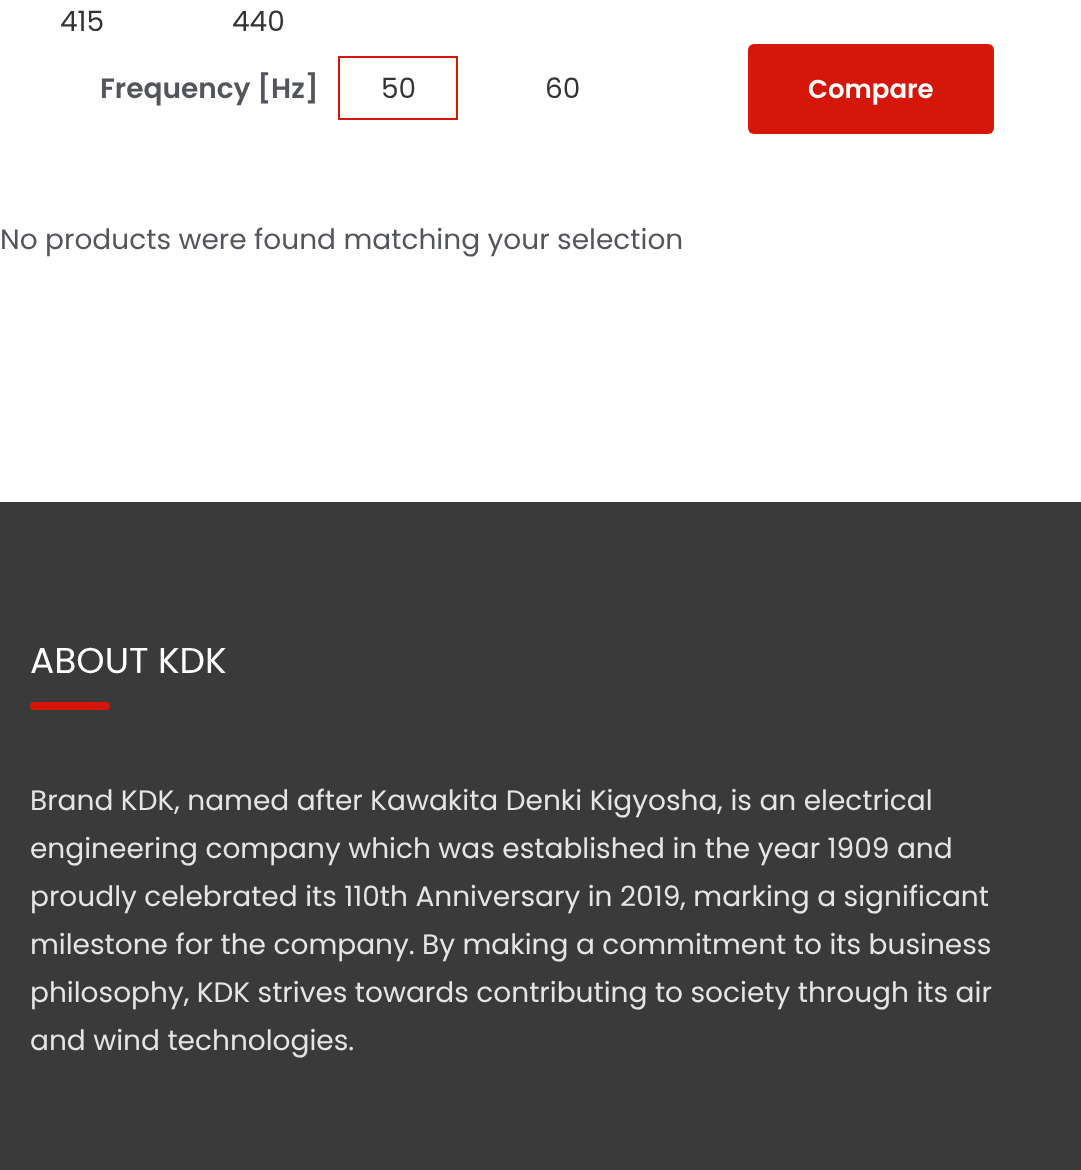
<svg xmlns="http://www.w3.org/2000/svg" width="1081" height="1170" viewBox="0 0 1081 1170">
  <style>
    .t1 { font: 28px Poppins; fill: #333; }
    .t2 { font: 600 28px Poppins; fill: #53555c; }
    .t3 { font: 600 26px Poppins; fill: #fff; }
    .t4 { font: 28px Poppins; fill: #53555c; }
    .t5 { font: 36px Poppins; fill: #fff; }
    .t6 { font: 28px Poppins; fill: #e5e5e5; }
  </style>
  <rect width="100%" height="100%" fill="#fff"/>
  <text x="60" y="31" class="t1">415</text>
  <text x="232" y="31" class="t1">440</text>
  <text x="100" y="98" class="t2">Frequency [Hz]</text>
  <rect x="339" y="57" width="118" height="62" fill="none" stroke="#d51709" stroke-width="2"/>
  <text x="381" y="98" class="t1">50</text>
  <text x="545" y="98" class="t1">60</text>
  <rect x="748" y="44" width="246" height="90" rx="6" fill="#d51709"/>
  <text x="808" y="98" class="t3">Compare</text>
  <text x="0" y="249" class="t4">No products were found matching your selection</text>
  <rect x="0" y="502" width="1081" height="668" fill="#3a3a3a"/>
  <text x="30" y="673" class="t5">ABOUT KDK</text>
  <rect x="30" y="702" width="80" height="8" rx="4" fill="#d51709"/>
  <text x="30" y="810" class="t6">Brand KDK, named after Kawakita Denki Kigyosha, is an electrical</text>
  <text x="30" y="858" class="t6">engineering company which was established in the year 1909 and</text>
  <text x="30" y="906" class="t6">proudly celebrated its 110th Anniversary in 2019, marking a significant</text>
  <text x="30" y="954" class="t6">milestone for the company. By making a commitment to its business</text>
  <text x="30" y="1002" class="t6">philosophy, KDK strives towards contributing to society through its air</text>
  <text x="30" y="1050" class="t6">and wind technologies.</text>
</svg>
